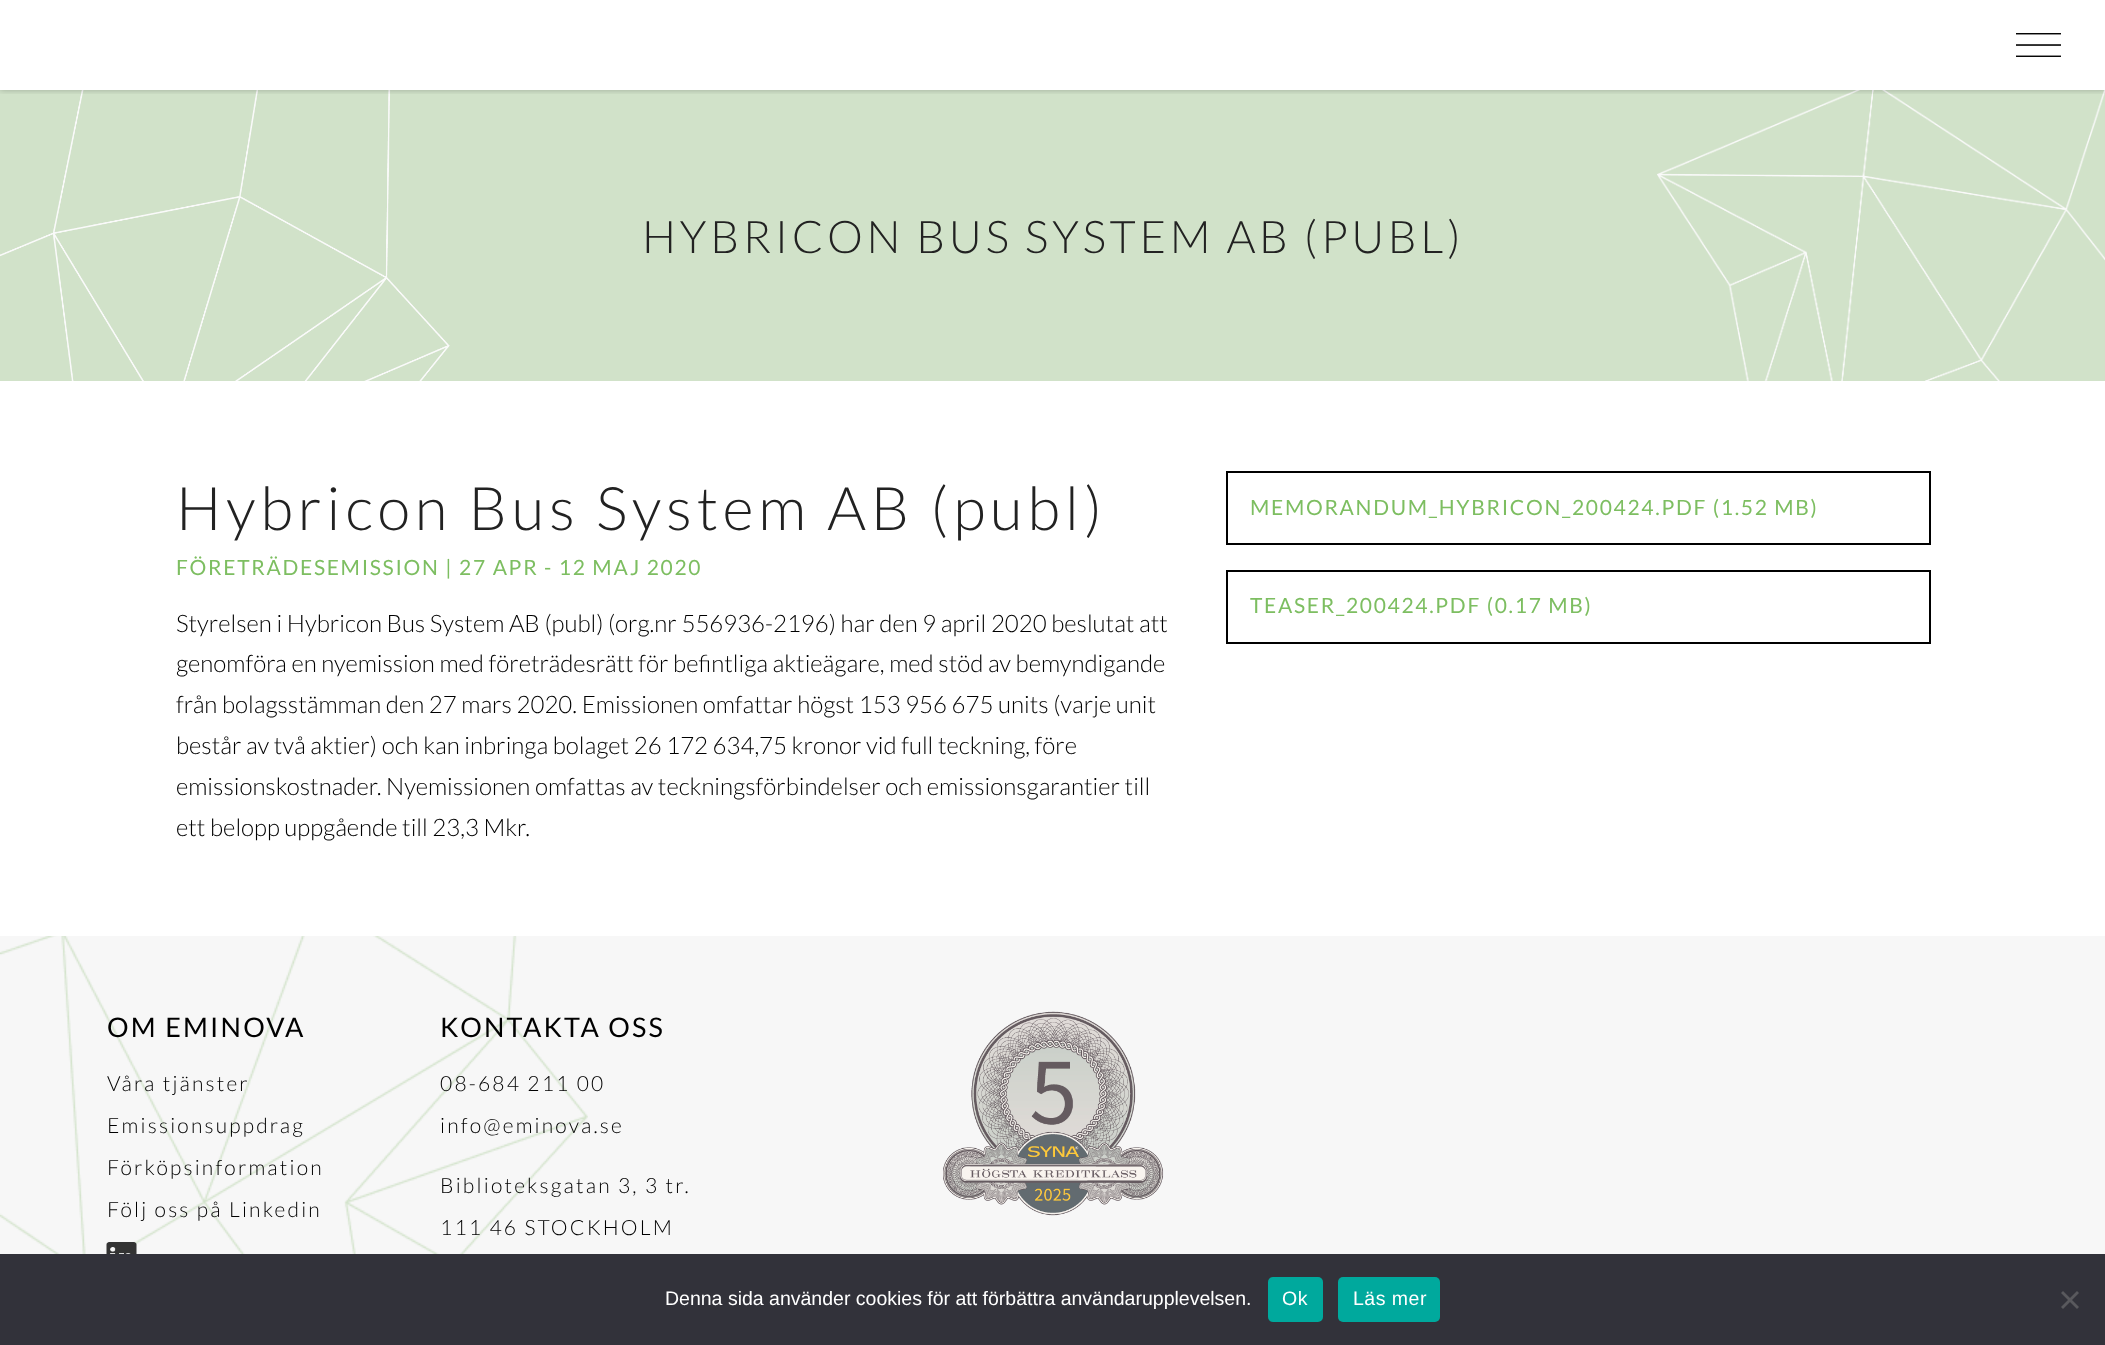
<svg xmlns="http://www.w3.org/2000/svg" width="2105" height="1345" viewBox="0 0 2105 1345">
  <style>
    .t1 { font: 300 45px Lato; letter-spacing: 3.6px; fill: #222; }
    .t2 { font: 300 60px Lato; letter-spacing: 4.8px; fill: #222; }
    .t3 { font: 21px Lato; letter-spacing: 1.7px; fill: #7dbe61; }
    .t4 { font: 300 24px Lato; fill: #000; }
    .t5 { font: 27px Lato; letter-spacing: 2.2px; fill: #000; }
    .t6 { font: 300 21px Lato; letter-spacing: 2.2px; fill: #000; }
    .t7 { font: 19.5px Liberation Sans; fill: #fff; }
    .t8 { font: 19.5px Liberation Sans; letter-spacing: 0.5px; fill: #fff; }
  </style>
  <defs>
    <clipPath id="clip1"><rect x="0" y="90" width="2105" height="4"/></clipPath>
  </defs>
  <rect width="100%" height="100%" fill="#fff"/>
  <rect x="0" y="90" width="2105" height="291" fill="#d1e2c9"/>
  <image x="0" y="90" width="450" height="291" href="images/2.png"/>
  <image x="1657" y="90" width="448" height="291" href="images/3.png"/>
  <g clip-path="url(#clip1)">
    <rect x="0" y="0" width="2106" height="90" fill="#00000040" filter="blur(3px)"/>
  </g>
  <image x="2016" y="33" width="45" height="24" href="images/1.png"/>
  <text x="642" y="253" class="t1">HYBRICON BUS SYSTEM AB (PUBL)</text>
  <text x="176" y="530" class="t2">Hybricon Bus System AB (publ)</text>
  <text x="176" y="575" class="t3">FÖRETRÄDESEMISSION | 27 APR - 12 MAJ 2020</text>
  <text x="176" y="632" class="t4">Styrelsen i Hybricon Bus System AB (publ) (org.nr 556936-2196) har den 9 april 2020 beslutat att</text>
  <text x="176" y="672" class="t4">genomföra en nyemission med företrädesrätt för befintliga aktieägare, med stöd av bemyndigande</text>
  <text x="176" y="713" class="t4">från bolagsstämman den 27 mars 2020. Emissionen omfattar högst 153 956 675 units (varje unit</text>
  <text x="176" y="754" class="t4">består av två aktier) och kan inbringa bolaget 26 172 634,75 kronor vid full teckning, före</text>
  <text x="176" y="795" class="t4">emissionskostnader. Nyemissionen omfattas av teckningsförbindelser och emissionsgarantier till</text>
  <text x="176" y="836" class="t4">ett belopp uppgående till 23,3 Mkr.</text>
  <rect x="1227" y="472" width="703" height="72" fill="none" stroke="#000" stroke-width="2"/>
  <text x="1250" y="515" class="t3">MEMORANDUM_HYBRICON_200424.PDF (1.52 MB)</text>
  <rect x="1227" y="571" width="703" height="72" fill="none" stroke="#000" stroke-width="2"/>
  <text x="1250" y="613" class="t3">TEASER_200424.PDF (0.17 MB)</text>
  <rect x="0" y="936" width="2105" height="318" fill="#f7f7f7"/>
  <image x="0" y="936" width="588" height="318" href="images/4.png"/>
  <text x="107" y="1037" class="t5">OM EMINOVA</text>
  <text x="107" y="1091" class="t6">Våra tjänster</text>
  <text x="107" y="1133" class="t6">Emissionsuppdrag</text>
  <text x="107" y="1175" class="t6">Förköpsinformation</text>
  <text x="107" y="1217" class="t6">Följ oss på Linkedin</text>
  <image x="106" y="1242" width="31" height="12" href="images/5.png"/>
  <text x="440" y="1037" class="t5">KONTAKTA OSS</text>
  <text x="440" y="1091" class="t6">08-684 211 00</text>
  <text x="440" y="1133" class="t6">info@eminova.se</text>
  <text x="440" y="1193" class="t6">Biblioteksgatan 3, 3 tr.</text>
  <text x="440" y="1235" class="t6">111 46 STOCKHOLM</text>
  <image x="943" y="1011" width="221" height="205" href="images/6.png"/>
  <rect x="0" y="1254" width="2105" height="91" fill="#32323a"/>
  <text x="665" y="1305" class="t7">Denna sida använder cookies för att förbättra användarupplevelsen.</text>
  <rect x="1268" y="1277" width="55" height="45" rx="5" fill="#00a99d"/>
  <text x="1282" y="1305" class="t8">Ok</text>
  <rect x="1338" y="1277" width="102" height="45" rx="5" fill="#00a99d"/>
  <text x="1353" y="1305" class="t8">Läs mer</text>
  <path d="M2077 1291L2079 1293L2063 1309L2061 1307Z" fill="#59595d"/>
  <path d="M2061 1293L2063 1291L2079 1307L2077 1309Z" fill="#59595d"/>
</svg>
